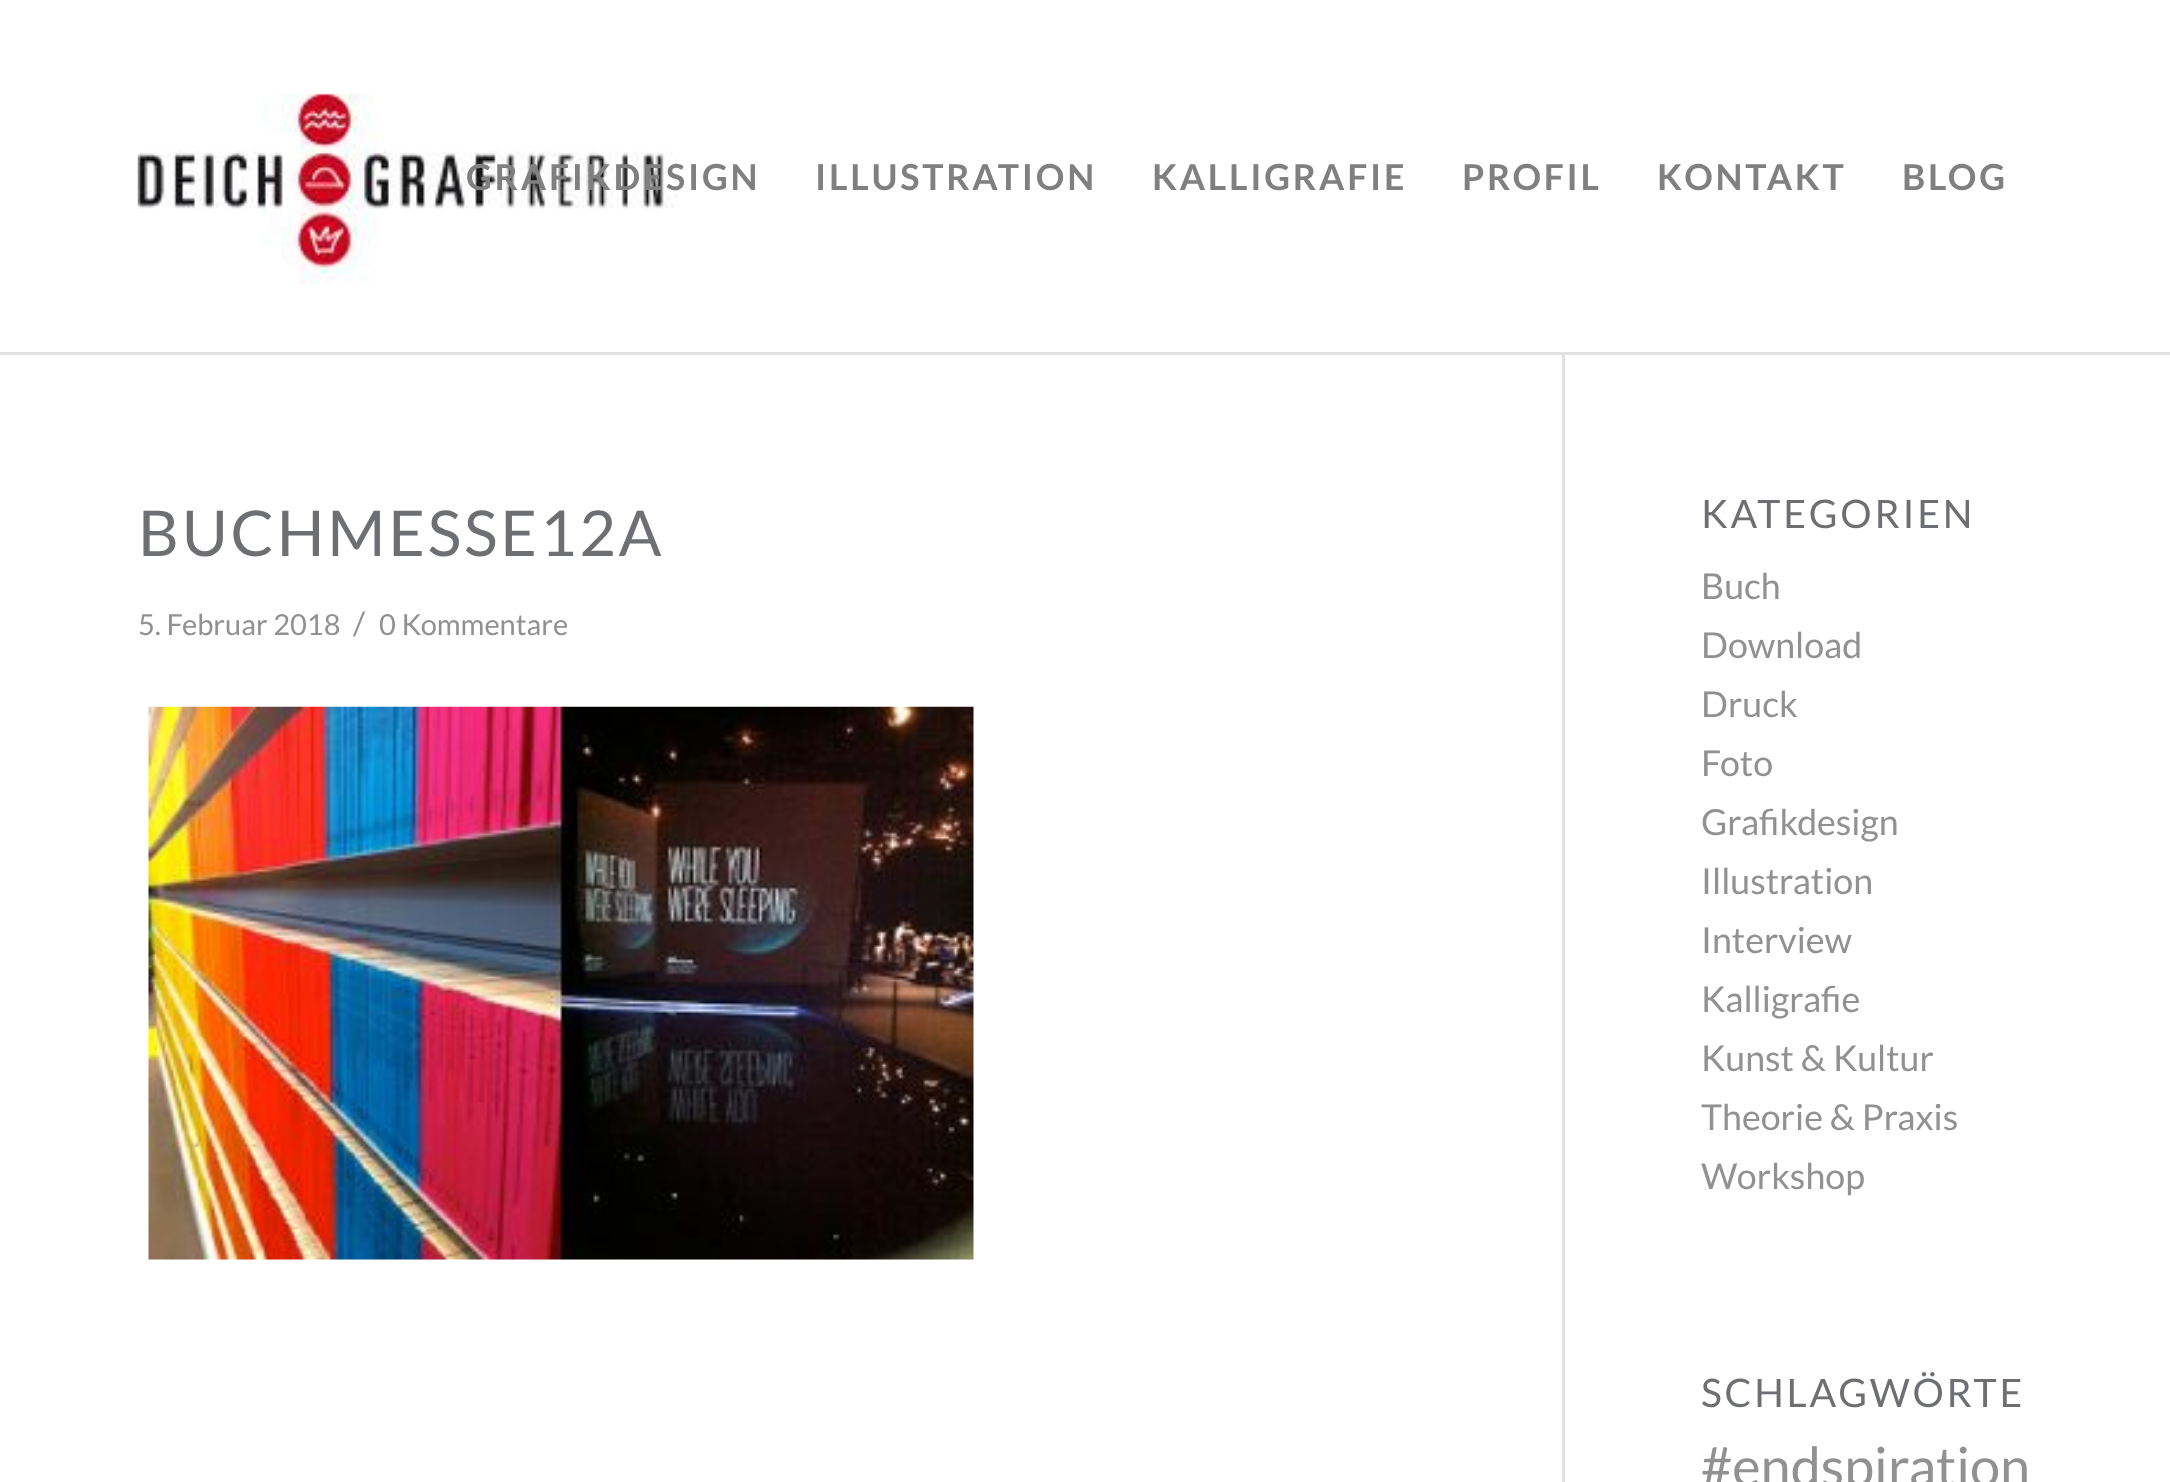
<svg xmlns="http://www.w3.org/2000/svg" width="2170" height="1482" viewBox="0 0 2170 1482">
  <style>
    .t1 { font: bold 35.75px Lato; letter-spacing: 2.75px; fill: #808080; }
    .t2 { font: 63.25px Lato; letter-spacing: 2.75px; fill: #6e6f73; }
    .t3 { font: 29px Lato; fill: #919191; }
    .t4 { font: 32px Lato; fill: #919191; }
    .t5 { font: 39.25px Lato; letter-spacing: 2.75px; fill: #6e6f73; }
    .t6 { font: 35.75px Lato; fill: #919191; }
    .t7 { font: 54px Lato; fill: #919191; }
  </style>
  <rect width="100%" height="100%" fill="#fff"/>
  <rect x="0" y="352" width="2170" height="3" fill="#e1e1e1"/>
  <image x="137" y="93" width="542" height="191" href="images/1.png"/>
  <text x="466" y="190" class="t1">GRAFIKDESIGN</text>
  <text x="815" y="190" class="t1">ILLUSTRATION</text>
  <text x="1152" y="190" class="t1">KALLIGRAFIE</text>
  <text x="1462" y="190" class="t1">PROFIL</text>
  <text x="1657" y="190" class="t1">KONTAKT</text>
  <text x="1902" y="190" class="t1">BLOG</text>
  <rect x="1562" y="355" width="3" height="1127" fill="#e1e1e1"/>
  <text x="138" y="556" class="t2">BUCHMESSE12A</text>
  <text x="138" y="635" class="t3">5. Februar 2018</text>
  <text x="353" y="635" class="t4">/</text>
  <text x="379" y="635" class="t3">0 Kommentare</text>
  <image x="148" y="706" width="826" height="554" href="images/2.png"/>
  <text x="1701" y="528" class="t5">KATEGORIEN</text>
  <text x="1701" y="599" class="t6">Buch</text>
  <text x="1701" y="658" class="t6">Download</text>
  <text x="1701" y="717" class="t6">Druck</text>
  <text x="1701" y="776" class="t6">Foto</text>
  <text x="1701" y="835" class="t6">Grafikdesign</text>
  <text x="1701" y="894" class="t6">Illustration</text>
  <text x="1701" y="953" class="t6">Interview</text>
  <text x="1701" y="1012" class="t6">Kalligrafie</text>
  <text x="1701" y="1071" class="t6">Kunst &amp; Kultur</text>
  <text x="1701" y="1130" class="t6">Theorie &amp; Praxis</text>
  <text x="1701" y="1189" class="t6">Workshop</text>
  <text x="1701" y="1407" class="t5">SCHLAGWÖRTE</text>
  <text x="1701" y="1486" class="t7">#endspiration</text>
</svg>
